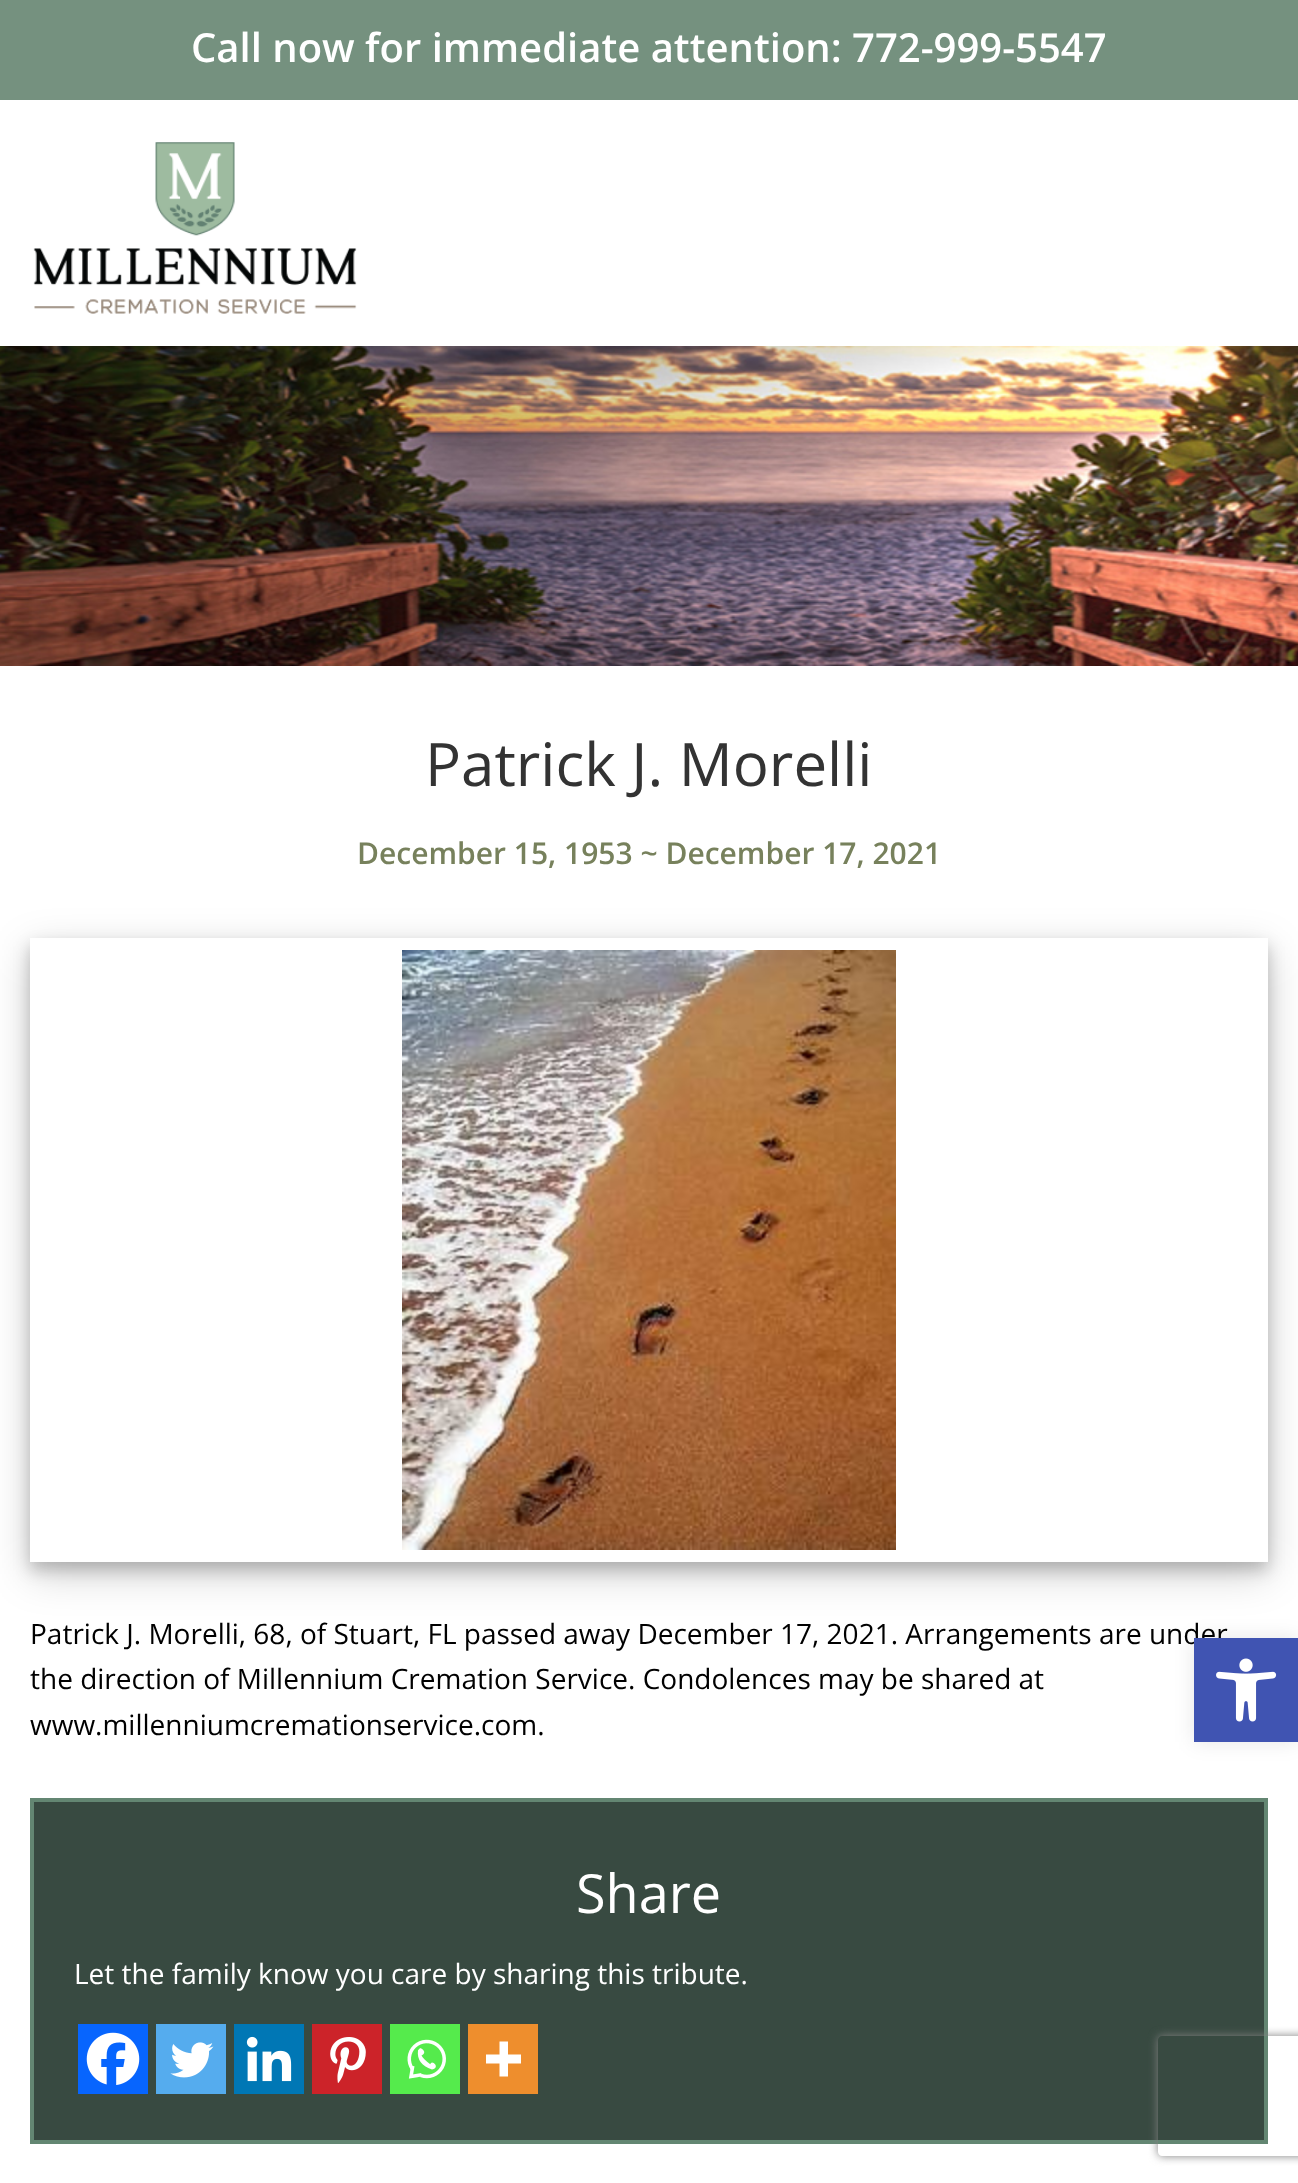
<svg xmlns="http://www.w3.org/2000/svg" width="1298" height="2183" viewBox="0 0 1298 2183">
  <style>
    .t1 { font: 600 40px Open Sans; fill: #fff; }
    .t2 { font: 60px Open Sans; fill: #333; }
    .t3 { font: 600 30px Open Sans; fill: #77815c; }
    .t4 { font: 28px Open Sans; fill: #000; }
    .t5 { font: 54px Open Sans; fill: #fff; }
    .t6 { font: 28px Open Sans; fill: #fff; }
  </style>
  <defs>
    <clipPath id="clip1"><path d="M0 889H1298V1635H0ZM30 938H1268V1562H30Z" clip-rule="evenodd"/></clipPath>
    <clipPath id="clip2"><path d="M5 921H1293V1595H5ZM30 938H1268V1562H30Z" clip-rule="evenodd"/></clipPath>
    <clipPath id="clip3"><path d="M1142 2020H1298V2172H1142ZM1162 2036H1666C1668 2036 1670 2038 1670 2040V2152C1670 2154 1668 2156 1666 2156H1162C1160 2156 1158 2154 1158 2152V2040C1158 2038 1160 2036 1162 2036Z" clip-rule="evenodd"/></clipPath>
  </defs>
  <rect width="100%" height="100%" fill="#fff"/>
  <rect x="0" y="0" width="1298" height="100" fill="#75917f"/>
  <text x="191" y="62" class="t1">Call now for immediate attention: 772-999-5547</text>
  <image x="33" y="142" width="324" height="172" href="images/1.png"/>
  <image x="0" y="346" width="1298" height="320" href="images/2.png"/>
  <text x="425" y="786" class="t2">Patrick J. Morelli</text>
  <text x="357" y="864" class="t3">December 15, 1953 ~ December 17, 2021</text>
  <g clip-path="url(#clip1)">
    <rect x="30" y="950" width="1238" height="624" fill="#00000030" filter="blur(20px)"/>
  </g>
  <g clip-path="url(#clip2)">
    <rect x="30" y="946" width="1238" height="624" fill="#00000033" filter="blur(8px)"/>
  </g>
  <image x="402" y="950" width="494" height="600" href="images/3.png"/>
  <text x="30" y="1644" class="t4">Patrick J. Morelli, 68, of Stuart, FL passed away December 17, 2021. Arrangements are under</text>
  <text x="30" y="1689" class="t4">the direction of Millennium Cremation Service. Condolences may be shared at</text>
  <text x="30" y="1735" class="t4">www.millenniumcremationservice.com.</text>
  <rect x="32" y="1800" width="1234" height="342" fill="#384a41" stroke="#638672" stroke-width="4"/>
  <text x="576" y="1913" class="t5">Share</text>
  <text x="74" y="1984" class="t6">Let the family know you care by sharing this tribute.</text>
  <rect x="78" y="2024" width="70" height="70" fill="#0765fe"/>
  <image x="86" y="2032" width="54" height="53" href="images/4.png"/>
  <rect x="156" y="2024" width="70" height="70" fill="#55acee"/>
  <image x="170" y="2042" width="44" height="36" href="images/5.png"/>
  <rect x="234" y="2024" width="70" height="70" fill="#0077b5"/>
  <image x="246" y="2036" width="46" height="46" href="images/6.png"/>
  <rect x="312" y="2024" width="70" height="70" fill="#cc2329"/>
  <image x="330" y="2037" width="36" height="46" href="images/7.png"/>
  <rect x="390" y="2024" width="70" height="70" fill="#55eb4c"/>
  <image x="407" y="2039" width="39" height="40" href="images/8.png"/>
  <rect x="468" y="2024" width="70" height="70" fill="#ee8e2d"/>
  <path d="M508 2054.5V2041.5H499.5V2054.5H486V2063.5H499.5V2076.5H508V2063.5H521V2054.5Z" fill="#fff" fill-rule="evenodd"/>
  <rect x="1194" y="1638" width="104" height="104" fill="#0000001a" filter="blur(10px)"/>
  <rect x="1194" y="1638" width="104" height="104" fill="#4054b2"/>
  <image x="1216" y="1658" width="61" height="64" href="images/9.png"/>
  <g clip-path="url(#clip3)">
    <rect x="1158" y="2036" width="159" height="120" rx="4" fill="#808080" filter="blur(5px)"/>
  </g>
</svg>
